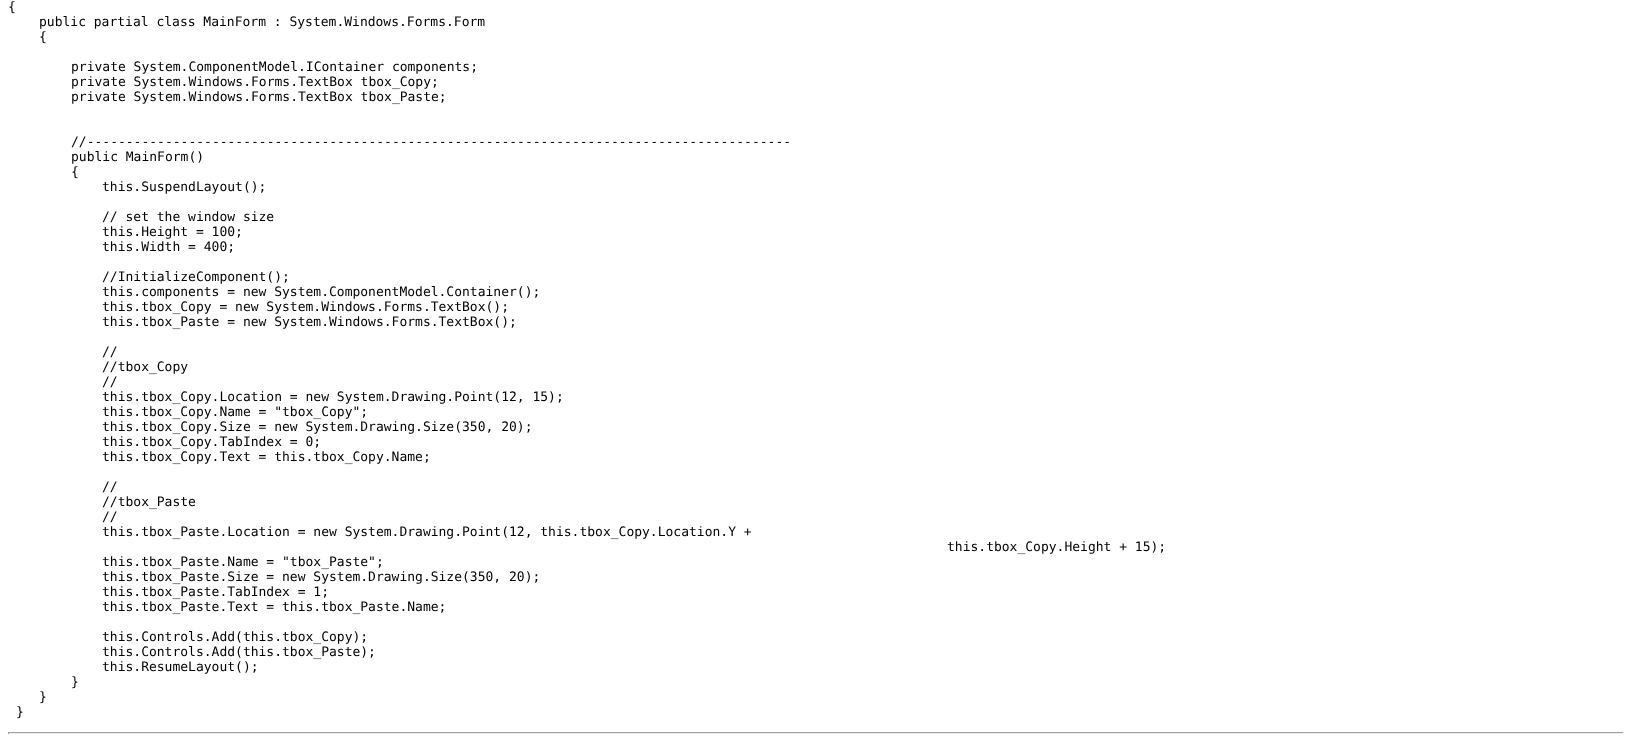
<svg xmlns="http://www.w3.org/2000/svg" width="1632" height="749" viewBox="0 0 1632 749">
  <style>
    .t1 { font: 13px DejaVu Sans Mono; fill: #000; }
  </style>
  <rect width="100%" height="100%" fill="#fff"/>
  <text x="8" y="11" class="t1">{</text>
  <text x="39" y="26" class="t1">public partial class MainForm : System.Windows.Forms.Form</text>
  <text x="39" y="41" class="t1">{</text>
  <text x="71" y="71" class="t1">private System.ComponentModel.IContainer components;</text>
  <text x="71" y="86" class="t1">private System.Windows.Forms.TextBox tbox_Copy;</text>
  <text x="71" y="101" class="t1">private System.Windows.Forms.TextBox tbox_Paste;</text>
  <text x="71" y="146" class="t1">//------------------------------------------------------------------------------------------</text>
  <text x="71" y="161" class="t1">public MainForm()</text>
  <text x="71" y="176" class="t1">{</text>
  <text x="102" y="191" class="t1">this.SuspendLayout();</text>
  <text x="102" y="221" class="t1">// set the window size</text>
  <text x="102" y="236" class="t1">this.Height = 100;</text>
  <text x="102" y="251" class="t1">this.Width = 400;</text>
  <text x="102" y="281" class="t1">//InitializeComponent();</text>
  <text x="102" y="296" class="t1">this.components = new System.ComponentModel.Container();</text>
  <text x="102" y="311" class="t1">this.tbox_Copy = new System.Windows.Forms.TextBox();</text>
  <text x="102" y="326" class="t1">this.tbox_Paste = new System.Windows.Forms.TextBox();</text>
  <text x="102" y="356" class="t1">//</text>
  <text x="102" y="371" class="t1">//tbox_Copy</text>
  <text x="102" y="386" class="t1">//</text>
  <text x="102" y="401" class="t1">this.tbox_Copy.Location = new System.Drawing.Point(12, 15);</text>
  <text x="102" y="416" class="t1">this.tbox_Copy.Name = "tbox_Copy";</text>
  <text x="102" y="431" class="t1">this.tbox_Copy.Size = new System.Drawing.Size(350, 20);</text>
  <text x="102" y="446" class="t1">this.tbox_Copy.TabIndex = 0;</text>
  <text x="102" y="461" class="t1">this.tbox_Copy.Text = this.tbox_Copy.Name;</text>
  <text x="102" y="491" class="t1">//</text>
  <text x="102" y="506" class="t1">//tbox_Paste</text>
  <text x="102" y="521" class="t1">//</text>
  <text x="102" y="536" class="t1">this.tbox_Paste.Location = new System.Drawing.Point(12, this.tbox_Copy.Location.Y +</text>
  <text x="947" y="551" class="t1">this.tbox_Copy.Height + 15);</text>
  <text x="102" y="566" class="t1">this.tbox_Paste.Name = "tbox_Paste";</text>
  <text x="102" y="581" class="t1">this.tbox_Paste.Size = new System.Drawing.Size(350, 20);</text>
  <text x="102" y="596" class="t1">this.tbox_Paste.TabIndex = 1;</text>
  <text x="102" y="611" class="t1">this.tbox_Paste.Text = this.tbox_Paste.Name;</text>
  <text x="102" y="641" class="t1">this.Controls.Add(this.tbox_Copy);</text>
  <text x="102" y="656" class="t1">this.Controls.Add(this.tbox_Paste);</text>
  <text x="102" y="671" class="t1">this.ResumeLayout();</text>
  <text x="71" y="686" class="t1">}</text>
  <text x="39" y="701" class="t1">}</text>
  <text x="16" y="716" class="t1">}</text>
  <rect x="8" y="732" width="1616" height="1" fill="#9f9f9f"/>
  <rect x="1623" y="732" width="1" height="2" fill="#eee"/>
  <rect x="8" y="733" width="1616" height="1" fill="#eee"/>
  <rect x="8" y="732" width="1" height="2" fill="#9f9f9f"/>
</svg>
